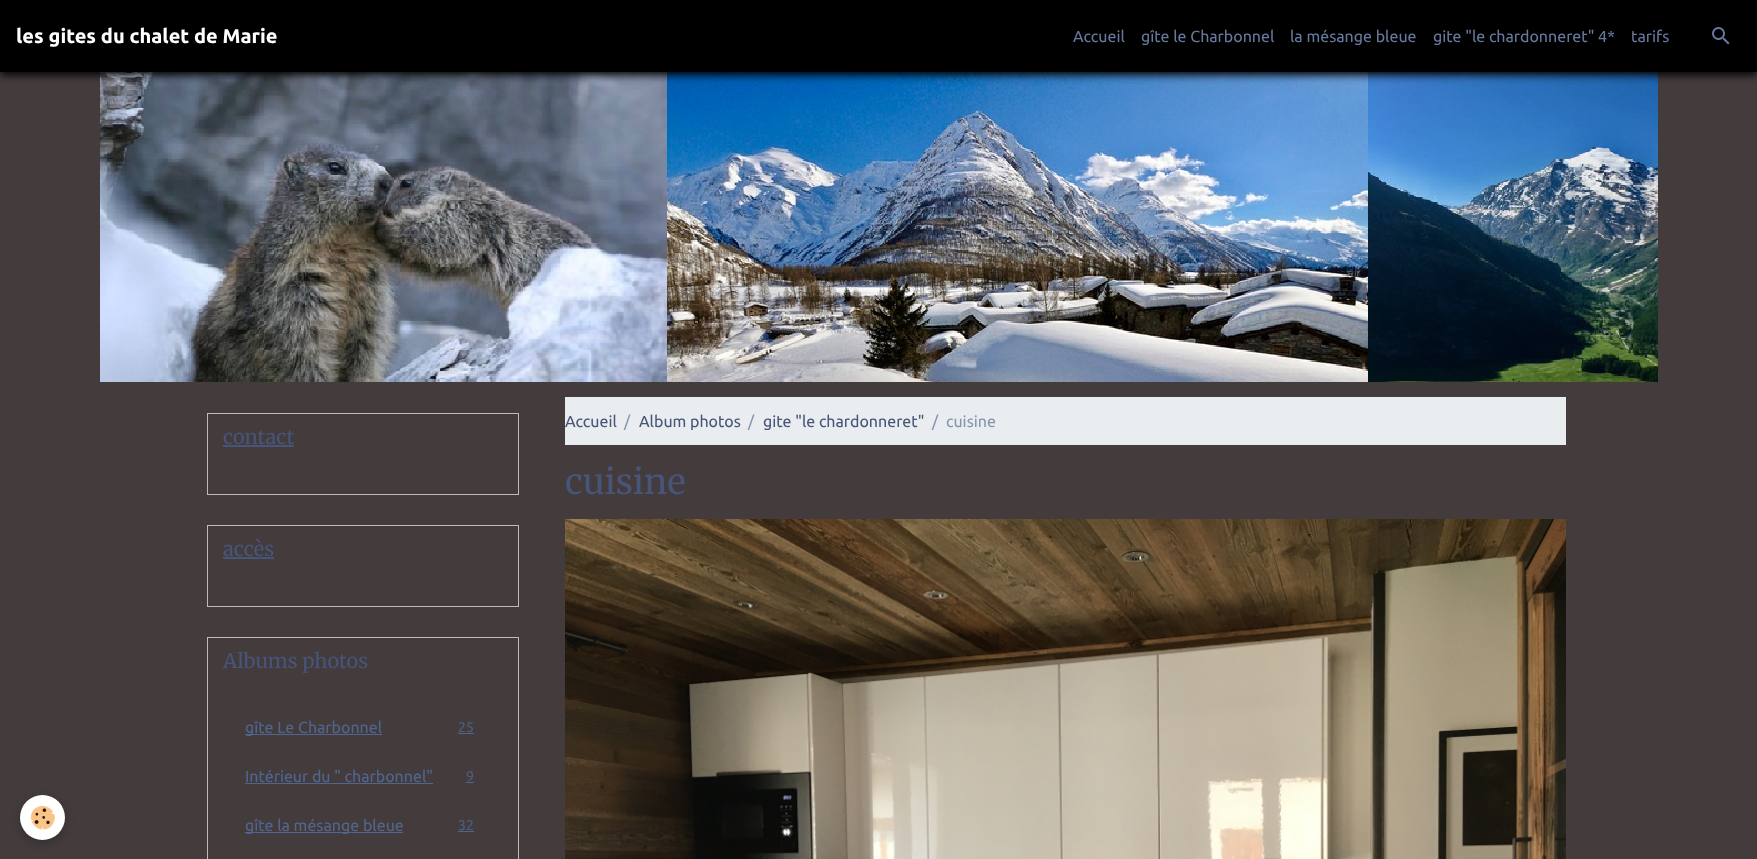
<svg xmlns="http://www.w3.org/2000/svg" width="1757" height="859" viewBox="0 0 1757 859">
  <style>
    .t1 { font: bold 20px Ubuntu; fill: #fff; }
    .t2 { font: 16px Ubuntu; fill: #66799e; }
    .t3 { font: 20px Merriweather; fill: #465579; }
    .t4 { font: 16px Ubuntu; fill: #506690; }
    .t5 { font: 14px Ubuntu; fill: #4e5e7f; }
    .t6 { font: 16px Ubuntu; fill: #465579; }
    .t7 { font: 16px Ubuntu; fill: #8594b1; }
    .t8 { font: 35px Merriweather; fill: #465579; }
  </style>
  <rect width="100%" height="100%" fill="#443c3c"/>
  <image x="100" y="72" width="1558" height="310" href="images/2.png"/>
  <rect x="0" y="3" width="1757" height="72" fill="#000" filter="blur(4px)"/>
  <rect x="0" y="0" width="1757" height="72" fill="#000"/>
  <text x="16" y="43" class="t1">les gites du chalet de Marie</text>
  <text x="1073" y="42" class="t2">Accueil</text>
  <text x="1141" y="42" class="t2">gîte le Charbonnel</text>
  <text x="1290" y="42" class="t2">la mésange bleue</text>
  <text x="1433" y="42" class="t2">gite "le chardonneret" 4*</text>
  <text x="1631" y="42" class="t2">tarifs</text>
  <image x="1712" y="27" width="18" height="18" href="images/1.png"/>
  <rect x="20" y="798" width="45" height="45" rx="22.5" fill="#0000003d" filter="blur(5px)"/>
  <circle cx="42.5" cy="817.5" r="22.5" fill="#fff"/>
  <image x="30" y="805" width="25" height="25" href="images/3.png"/>
  <rect x="207.5" y="413.5" width="311" height="81" fill="none" stroke="#bcbcbc"/>
  <text x="223" y="444" class="t3">contact</text>
  <rect x="223" y="445" width="71" height="2" fill="#465579"/>
  <rect x="207.5" y="525.5" width="311" height="81" fill="none" stroke="#bcbcbc"/>
  <text x="223" y="556" class="t3">accès</text>
  <rect x="223" y="557" width="51" height="2" fill="#465579"/>
  <rect x="207.5" y="637.5" width="311" height="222" fill="none" stroke="#bcbcbc"/>
  <text x="223" y="668" class="t3">Albums photos</text>
  <rect x="245" y="734" width="137" height="1" fill="#506690"/>
  <text x="245" y="733" class="t4">gîte Le Charbonnel</text>
  <text x="458" y="732" class="t5">25</text>
  <rect x="458" y="733" width="16" height="1" fill="#506690"/>
  <text x="245" y="782" class="t4">Intérieur du " charbonnel"</text>
  <rect x="245" y="783" width="188" height="1" fill="#506690"/>
  <text x="466" y="781" class="t5">9</text>
  <rect x="466" y="782" width="8" height="1" fill="#506690"/>
  <rect x="245" y="832" width="158" height="1" fill="#506690"/>
  <text x="245" y="831" class="t4">gîte la mésange bleue</text>
  <text x="458" y="830" class="t5">32</text>
  <rect x="458" y="831" width="16" height="1" fill="#506690"/>
  <rect x="565" y="397" width="1001" height="48" fill="#eaedef"/>
  <text x="565" y="427" class="t6">Accueil</text>
  <text x="624" y="427" class="t7">/</text>
  <text x="639" y="427" class="t6">Album photos</text>
  <text x="748" y="427" class="t7">/</text>
  <text x="763" y="427" class="t6">gite "le chardonneret"</text>
  <text x="932" y="427" class="t7">/</text>
  <text x="946" y="427" class="t7">cuisine</text>
  <text x="565" y="494" class="t8">cuisine</text>
  <image x="565" y="519" width="1001" height="340" href="images/4.png"/>
</svg>
